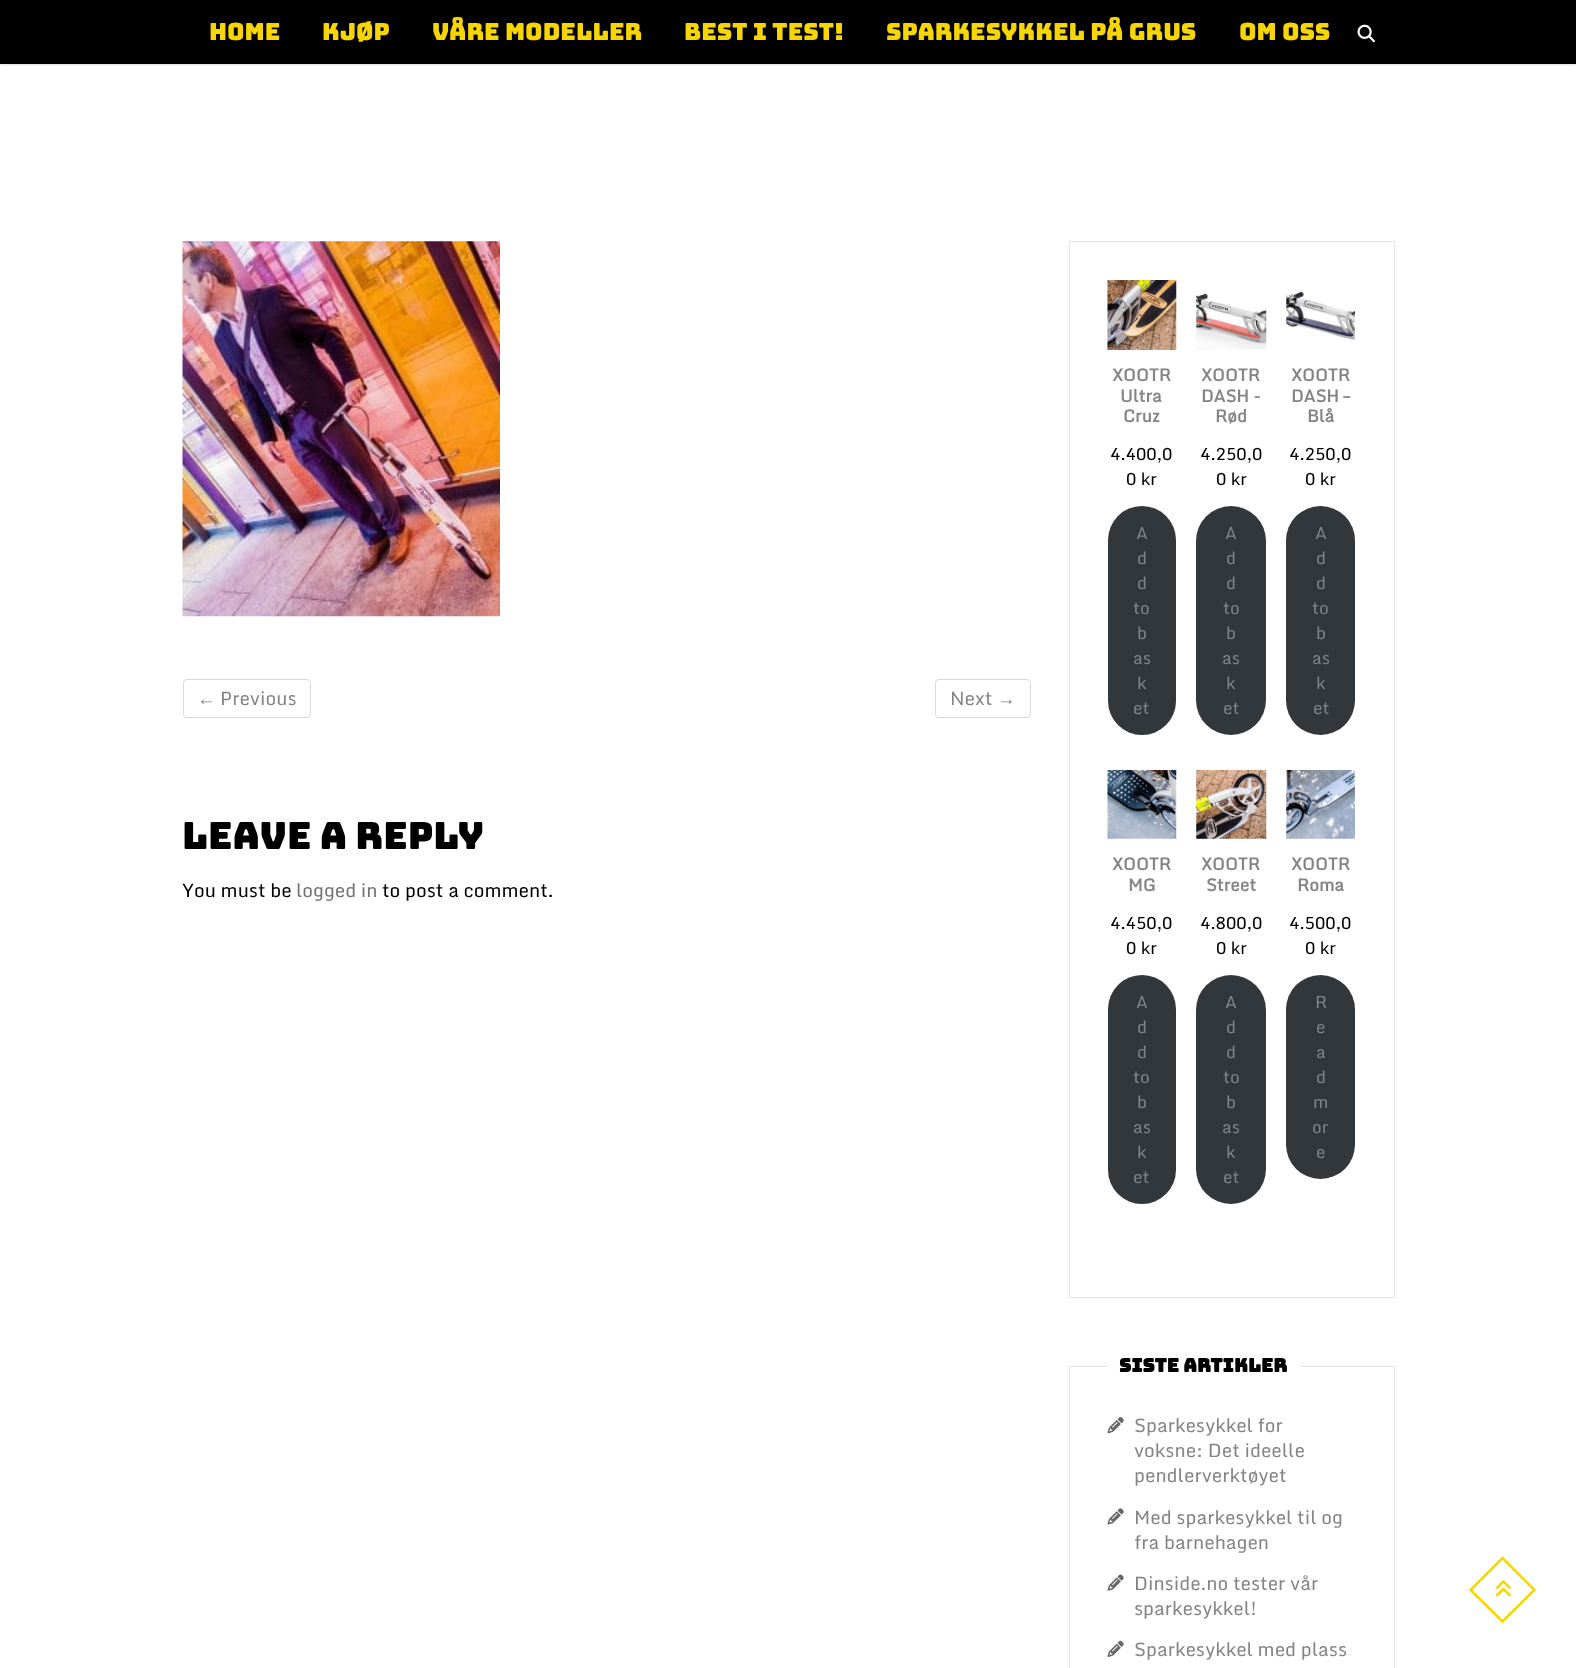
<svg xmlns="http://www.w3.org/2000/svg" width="1576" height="1668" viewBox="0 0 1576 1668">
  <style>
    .t1 { font: 23.75px Bungee; fill: #f7d600; }
    .t2 { font: 18.75px Liberation Sans; fill: #848484; }
    .t3 { font: 18.75px Monda; fill: #848484; }
    .t4 { font: 37.5px Bungee; fill: #000; }
    .t5 { font: 18.75px Monda; fill: #000; }
    .t6 { font: 18.75px Monda; fill: #727272; }
    .t7 { font: bold 17px Monda; fill: #848484; }
    .t8 { font: 17px Monda; fill: #000; }
    .t9 { font: 17px Monda; fill: #848484; }
    .t10 { font: bold 18.75px Bungee; fill: #000; }
  </style>
  <defs>
    <clipPath id="clip1"><path d="M1502.5 1556L1554 1607.5L1502.5 1659L1451 1607.5Z"/></clipPath>
  </defs>
  <rect width="100%" height="100%" fill="#fff"/>
  <rect x="0" y="1" width="1576" height="64" fill="#00000026" filter="blur(1px)"/>
  <rect x="0" y="0" width="1576" height="64" fill="#000"/>
  <text x="209" y="40" class="t1">HOME</text>
  <text x="322" y="40" class="t1">KJØP</text>
  <text x="432" y="40" class="t1">VÅRE MODELLER</text>
  <text x="684" y="40" class="t1">BEST I TEST!</text>
  <text x="886" y="40" class="t1">SPARKESYKKEL PÅ GRUS</text>
  <text x="1239" y="40" class="t1">OM OSS</text>
  <image x="1357" y="24" width="18" height="19" href="images/1.png"/>
  <image x="182" y="241" width="318" height="376" href="images/2.png"/>
  <rect x="183.5" y="679.5" width="127" height="38" rx="3.5" fill="none" stroke="#d9d9d9"/>
  <text x="197" y="705" class="t2">←</text>
  <text x="220" y="705" class="t3">Previous</text>
  <rect x="935.5" y="679.5" width="95" height="38" rx="3.5" fill="none" stroke="#d9d9d9"/>
  <text x="950" y="705" class="t3">Next</text>
  <text x="997" y="705" class="t2">→</text>
  <text x="182" y="849" class="t4">Leave a Reply</text>
  <text x="182" y="897" class="t5">You must be</text>
  <text x="296" y="897" class="t6">logged in</text>
  <text x="382" y="897" class="t5">to post a comment.</text>
  <rect x="1069.5" y="241.5" width="325" height="1056" fill="none" stroke="#e4e4e4"/>
  <image x="1107" y="280" width="70" height="70" href="images/3.png"/>
  <text x="1112" y="381" class="t7">XOOTR</text>
  <text x="1120" y="402" class="t7">Ultra</text>
  <text x="1123" y="422" class="t7">Cruz</text>
  <text x="1110" y="460" class="t8">4.400,0</text>
  <text x="1126" y="485" class="t8">0 kr</text>
  <rect x="1108" y="506" width="68" height="229" rx="34" fill="#32373c"/>
  <text x="1136" y="539" class="t9">A</text>
  <text x="1137" y="564" class="t9">d</text>
  <text x="1137" y="589" class="t9">d</text>
  <text x="1133" y="614" class="t9">to</text>
  <text x="1137" y="639" class="t9">b</text>
  <text x="1133" y="664" class="t9">as</text>
  <text x="1137" y="689" class="t9">k</text>
  <text x="1133" y="714" class="t9">et</text>
  <image x="1196" y="293" width="71" height="57" href="images/4.png"/>
  <text x="1201" y="381" class="t7">XOOTR</text>
  <text x="1201" y="402" class="t7">DASH -</text>
  <text x="1215" y="422" class="t7">Rød</text>
  <text x="1200" y="460" class="t8">4.250,0</text>
  <text x="1216" y="485" class="t8">0 kr</text>
  <rect x="1196" y="506" width="70" height="229" rx="35" fill="#32373c"/>
  <text x="1225" y="539" class="t9">A</text>
  <text x="1226" y="564" class="t9">d</text>
  <text x="1226" y="589" class="t9">d</text>
  <text x="1223" y="614" class="t9">to</text>
  <text x="1226" y="639" class="t9">b</text>
  <text x="1222" y="664" class="t9">as</text>
  <text x="1226" y="689" class="t9">k</text>
  <text x="1223" y="714" class="t9">et</text>
  <image x="1286" y="291" width="69" height="49" href="images/5.png"/>
  <text x="1291" y="381" class="t7">XOOTR</text>
  <text x="1291" y="402" class="t7">DASH –</text>
  <text x="1307" y="422" class="t7">Blå</text>
  <text x="1289" y="460" class="t8">4.250,0</text>
  <text x="1305" y="485" class="t8">0 kr</text>
  <rect x="1286" y="506" width="69" height="229" rx="34.5" fill="#32373c"/>
  <text x="1315" y="539" class="t9">A</text>
  <text x="1316" y="564" class="t9">d</text>
  <text x="1316" y="589" class="t9">d</text>
  <text x="1312" y="614" class="t9">to</text>
  <text x="1316" y="639" class="t9">b</text>
  <text x="1312" y="664" class="t9">as</text>
  <text x="1316" y="689" class="t9">k</text>
  <text x="1313" y="714" class="t9">et</text>
  <image x="1107" y="770" width="70" height="69" href="images/6.png"/>
  <text x="1112" y="870" class="t7">XOOTR</text>
  <text x="1128" y="891" class="t7">MG</text>
  <text x="1110" y="929" class="t8">4.450,0</text>
  <text x="1126" y="954" class="t8">0 kr</text>
  <rect x="1108" y="975" width="68" height="229" rx="34" fill="#32373c"/>
  <text x="1136" y="1008" class="t9">A</text>
  <text x="1137" y="1033" class="t9">d</text>
  <text x="1137" y="1058" class="t9">d</text>
  <text x="1133" y="1083" class="t9">to</text>
  <text x="1137" y="1108" class="t9">b</text>
  <text x="1133" y="1133" class="t9">as</text>
  <text x="1137" y="1158" class="t9">k</text>
  <text x="1133" y="1183" class="t9">et</text>
  <image x="1196" y="770" width="71" height="69" href="images/7.png"/>
  <text x="1201" y="870" class="t7">XOOTR</text>
  <text x="1206" y="891" class="t7">Street</text>
  <text x="1200" y="929" class="t8">4.800,0</text>
  <text x="1216" y="954" class="t8">0 kr</text>
  <rect x="1196" y="975" width="70" height="229" rx="35" fill="#32373c"/>
  <text x="1225" y="1008" class="t9">A</text>
  <text x="1226" y="1033" class="t9">d</text>
  <text x="1226" y="1058" class="t9">d</text>
  <text x="1223" y="1083" class="t9">to</text>
  <text x="1226" y="1108" class="t9">b</text>
  <text x="1222" y="1133" class="t9">as</text>
  <text x="1226" y="1158" class="t9">k</text>
  <text x="1223" y="1183" class="t9">et</text>
  <image x="1286" y="770" width="69" height="69" href="images/8.png"/>
  <text x="1291" y="870" class="t7">XOOTR</text>
  <text x="1297" y="891" class="t7">Roma</text>
  <text x="1289" y="929" class="t8">4.500,0</text>
  <text x="1305" y="954" class="t8">0 kr</text>
  <rect x="1286" y="975" width="69" height="204" rx="34.5" fill="#32373c"/>
  <text x="1315" y="1008" class="t9">R</text>
  <text x="1316" y="1033" class="t9">e</text>
  <text x="1316" y="1058" class="t9">a</text>
  <text x="1316" y="1083" class="t9">d</text>
  <text x="1313" y="1108" class="t9">m</text>
  <text x="1312" y="1133" class="t9">or</text>
  <text x="1316" y="1158" class="t9">e</text>
  <rect x="1069.5" y="1366.5" width="325" height="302" fill="none" stroke="#e4e4e4"/>
  <rect x="1108" y="1366" width="192" height="1" fill="#fff"/>
  <text x="1119" y="1372" class="t10">SISTE ARTIKLER</text>
  <image x="1107" y="1417" width="17" height="17" href="images/9.png"/>
  <text x="1134" y="1432" class="t3">Sparkesykkel for</text>
  <text x="1134" y="1457" class="t3">voksne: Det ideelle</text>
  <text x="1134" y="1482" class="t3">pendlerverktøyet</text>
  <image x="1107" y="1508" width="17" height="17" href="images/10.png"/>
  <text x="1134" y="1524" class="t3">Med sparkesykkel til og</text>
  <text x="1134" y="1549" class="t3">fra barnehagen</text>
  <image x="1107" y="1574" width="17" height="17" href="images/11.png"/>
  <text x="1134" y="1590" class="t3">Dinside.no tester vår</text>
  <text x="1134" y="1615" class="t3">sparkesykkel!</text>
  <image x="1107" y="1640" width="17" height="17" href="images/12.png"/>
  <text x="1134" y="1656" class="t3">Sparkesykkel med plass</text>
  <g clip-path="url(#clip1)">
    <path d="M1502.5 1558L1534.5 1590L1502.5 1621.5L1470.5 1590Z" fill="none" stroke="#f7d600" stroke-width="2.5"/>
  </g>
  <image x="1495" y="1580" width="16" height="17" href="images/13.png"/>
</svg>
